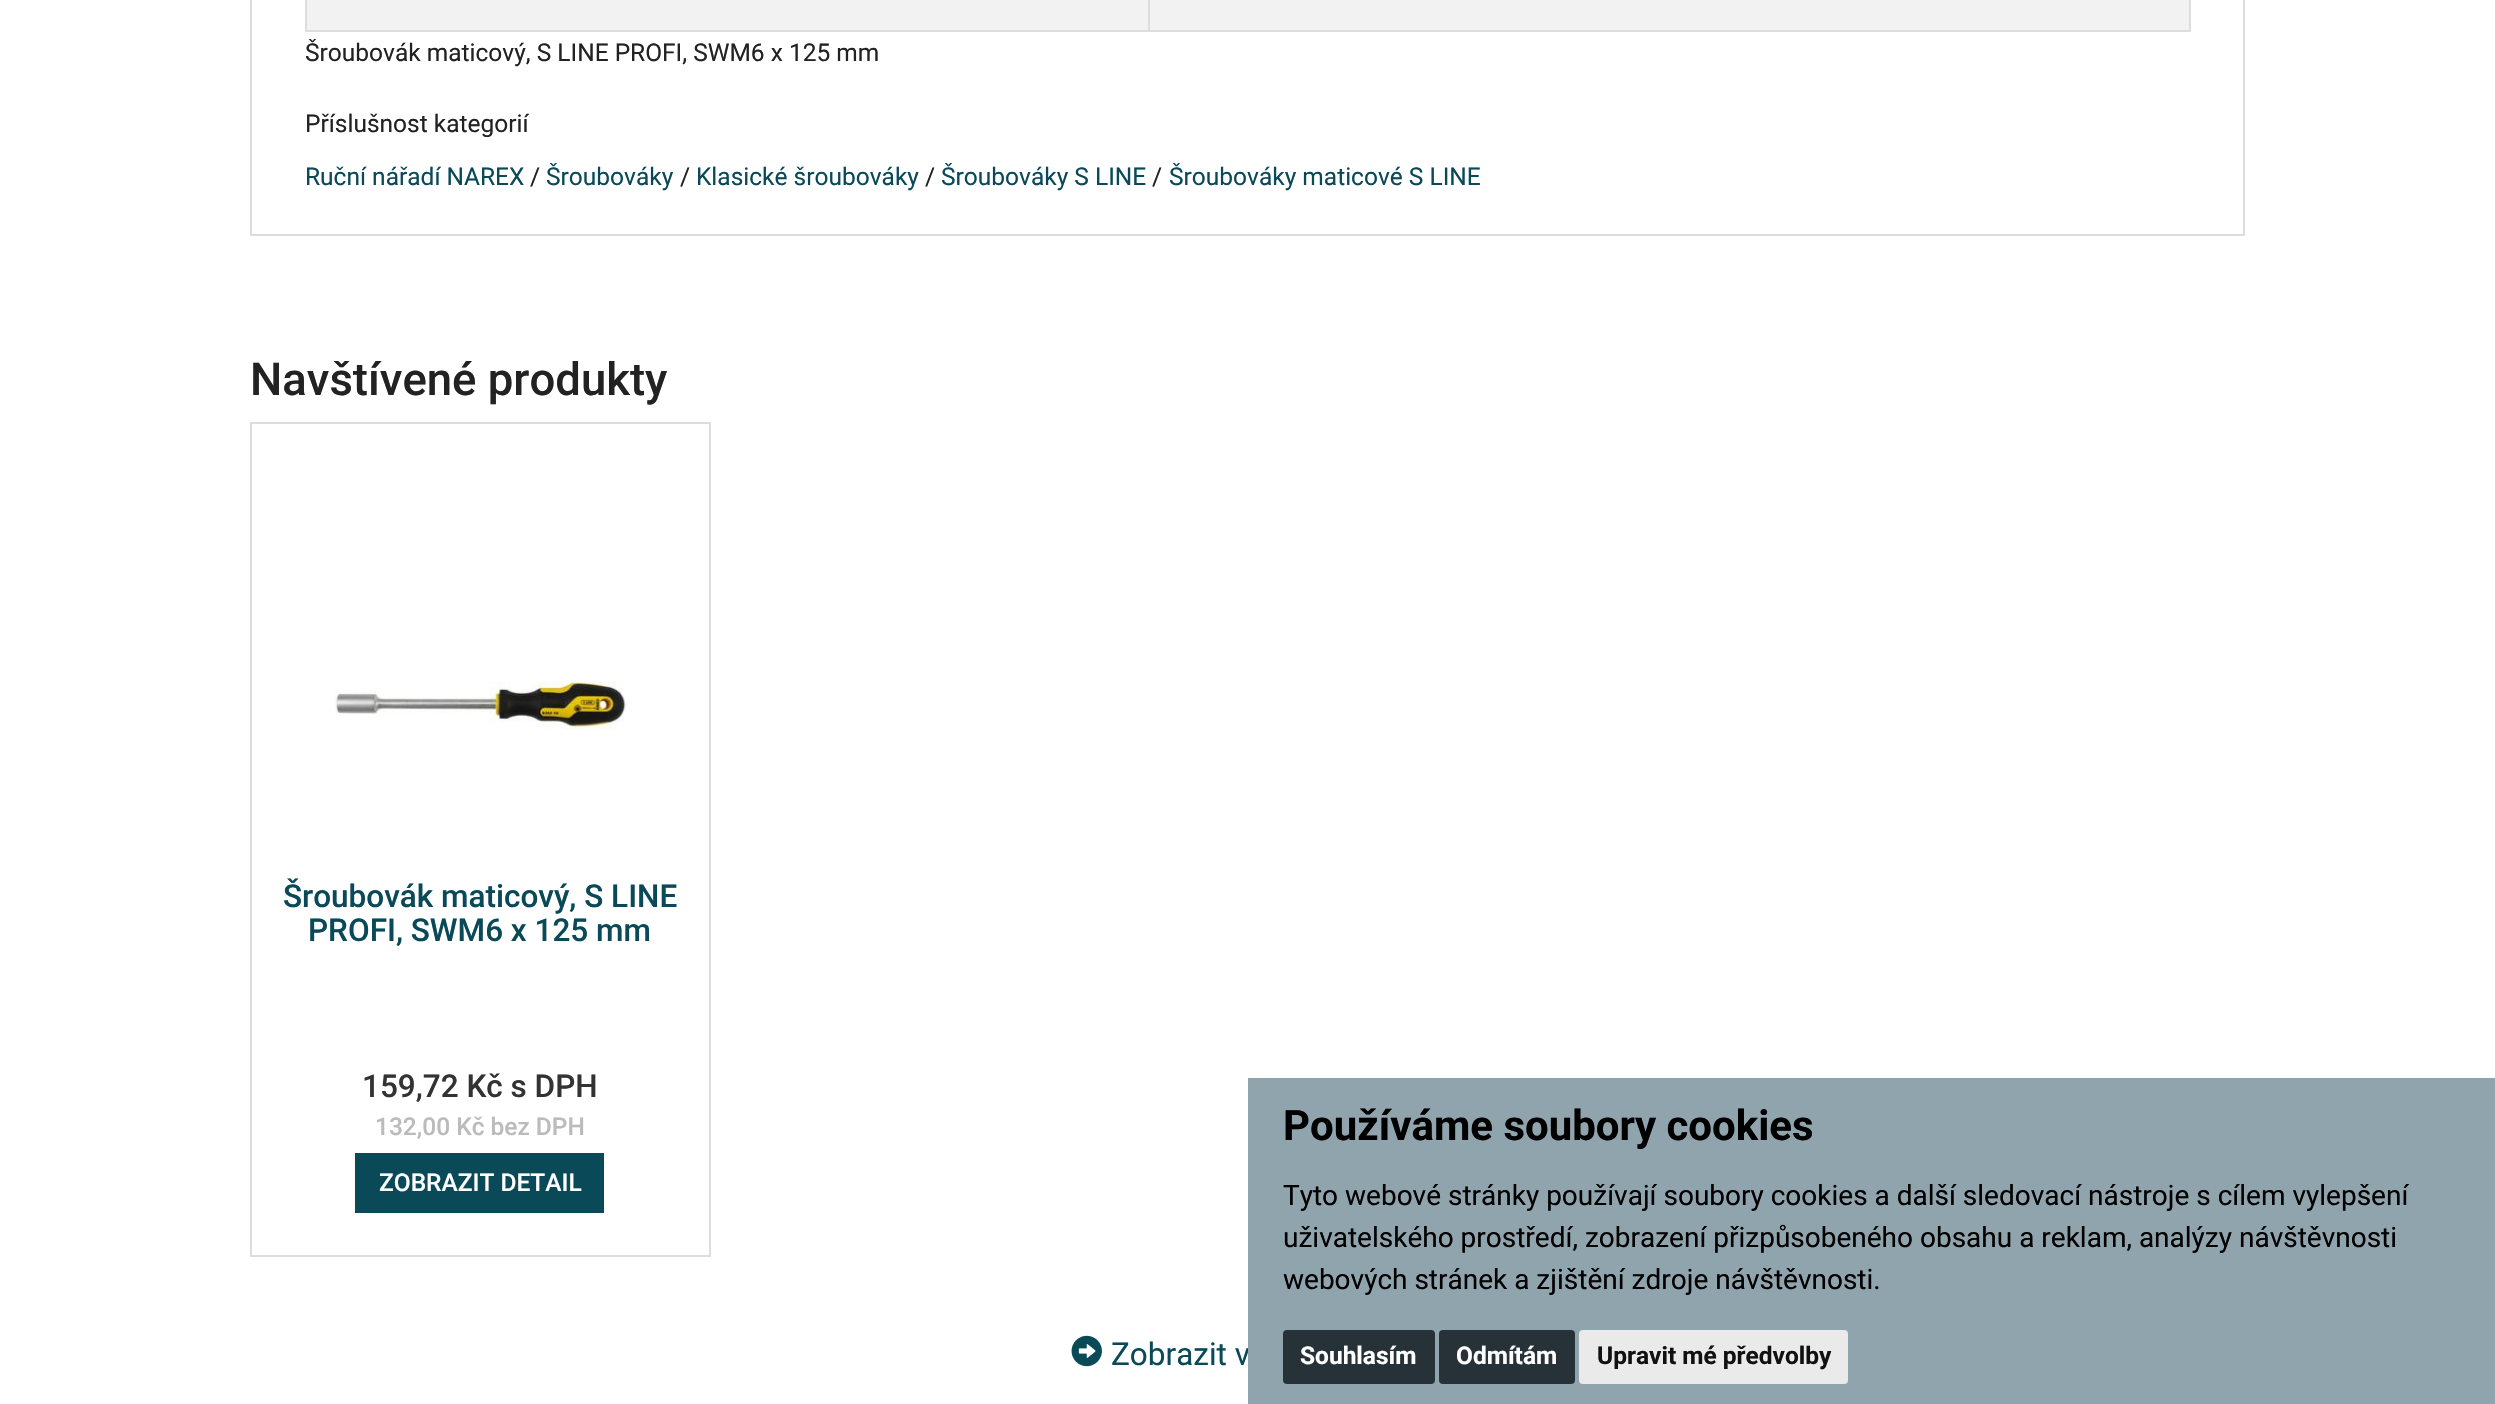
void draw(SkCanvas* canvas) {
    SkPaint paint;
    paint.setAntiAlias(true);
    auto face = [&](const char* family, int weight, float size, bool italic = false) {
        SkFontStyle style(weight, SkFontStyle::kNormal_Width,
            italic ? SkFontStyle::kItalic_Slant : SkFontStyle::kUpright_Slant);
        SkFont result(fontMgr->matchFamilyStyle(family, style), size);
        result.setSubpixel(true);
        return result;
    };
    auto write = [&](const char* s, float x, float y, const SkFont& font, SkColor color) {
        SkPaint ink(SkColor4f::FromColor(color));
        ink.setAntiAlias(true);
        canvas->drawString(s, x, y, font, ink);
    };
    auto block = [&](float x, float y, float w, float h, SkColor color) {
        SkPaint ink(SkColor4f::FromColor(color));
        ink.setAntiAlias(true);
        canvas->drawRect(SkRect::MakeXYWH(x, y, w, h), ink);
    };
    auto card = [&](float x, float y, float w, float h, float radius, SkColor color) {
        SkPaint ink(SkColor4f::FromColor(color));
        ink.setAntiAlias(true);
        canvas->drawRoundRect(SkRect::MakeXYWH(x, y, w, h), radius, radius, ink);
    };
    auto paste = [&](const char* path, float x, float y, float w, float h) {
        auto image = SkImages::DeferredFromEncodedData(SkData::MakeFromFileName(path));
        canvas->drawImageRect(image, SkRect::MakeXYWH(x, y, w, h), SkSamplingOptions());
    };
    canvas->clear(SK_ColorWHITE);
    paint.setStyle(SkPaint::kStroke_Style);
    paint.setStrokeWidth(2);
    paint.setColor(SkColorSetRGB(221, 221, 221));
    canvas->drawRect(SkRect::MakeXYWH(251, -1, 1993, 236), paint);
    block(307, 0, 1882, 30, SkColorSetRGB(242, 242, 242));
    block(2189, 0, 2, 32, SkColorSetRGB(221, 221, 221));
    block(1148, 30, 1043, 2, SkColorSetRGB(221, 221, 221));
    block(1148, 0, 2, 32, SkColorSetRGB(221, 221, 221));
    block(305, 30, 845, 2, SkColorSetRGB(221, 221, 221));
    block(305, 0, 2, 32, SkColorSetRGB(221, 221, 221));
    auto kFont1 = face("Roboto", 400, 24.5f);
    write("Šroubovák maticový, S LINE PROFI, SWM6 x 125 mm", 305, 61, kFont1, SkColorSetRGB(34, 34, 34));
    write("Příslušnost kategorií", 305, 132, kFont1, SkColorSetRGB(34, 34, 34));
    write("Ruční nářadí NAREX", 305, 185, kFont1, SkColorSetRGB(10, 73, 88));
    write("/", 530, 185, kFont1, SkColorSetRGB(34, 34, 34));
    write("Šroubováky", 546, 185, kFont1, SkColorSetRGB(10, 73, 88));
    write("/", 680, 185, kFont1, SkColorSetRGB(34, 34, 34));
    write("Klasické šroubováky", 696, 185, kFont1, SkColorSetRGB(10, 73, 88));
    write("/", 925, 185, kFont1, SkColorSetRGB(34, 34, 34));
    write("Šroubováky S LINE", 941, 185, kFont1, SkColorSetRGB(10, 73, 88));
    write("/", 1152, 185, kFont1, SkColorSetRGB(34, 34, 34));
    write("Šroubováky maticové S LINE", 1169, 185, kFont1, SkColorSetRGB(10, 73, 88));
    auto kFont2 = face("Roboto", 500, 45.5f);
    write("Navštívené produkty", 250, 395, kFont2, SkColorSetRGB(34, 34, 34));
    canvas->drawRect(SkRect::MakeXYWH(251, 423, 459, 833), paint);
    paste("pic1.png", 334, 681, 294, 49);
    auto kFont3 = face("Roboto", 500, 31.5f);
    write("Šroubovák maticový, S LINE", 283, 907, kFont3, SkColorSetRGB(10, 73, 88));
    write("PROFI, SWM6 x 125 mm", 308, 941, kFont3, SkColorSetRGB(10, 73, 88));
    write("159,72 Kč s DPH", 362, 1097, kFont3, SkColorSetRGB(51, 51, 51));
    auto kFont4 = face("Roboto", 500, 24.5f);
    write("132,00 Kč bez DPH", 375, 1135, kFont4, SkColorSetRGB(187, 187, 187));
    block(355, 1153, 249, 60, SkColorSetRGB(10, 73, 88));
    write("ZOBRAZIT DETAIL", 379, 1191, kFont4, SK_ColorWHITE);
    paste("pic2.png", 1071, 1335, 31, 32);
    auto kFont5 = face("Roboto", 400, 31.5f);
    write("Zobrazit v", 1111, 1365, kFont5, SkColorSetRGB(10, 73, 88));
    block(1248, 1078, 1247, 326, SkColorSetRGB(144, 164, 174));
    auto kFont6 = face("Roboto", 700, 42);
    write("Používáme soubory cookies", 1283, 1140, kFont6, SK_ColorBLACK);
    auto kFont7 = face("Roboto", 400, 28);
    write("Tyto webové stránky používají soubory cookies a další sledovací nástroje s cílem vylepšení", 1283, 1205, kFont7, SK_ColorBLACK);
    write("uživatelského prostředí, zobrazení přizpůsobeného obsahu a reklam, analýzy návštěvnosti", 1283, 1247, kFont7, SK_ColorBLACK);
    write("webových stránek a zjištění zdroje návštěvnosti.", 1283, 1289, kFont7, SK_ColorBLACK);
    card(1283, 1330, 152, 54, 4, SkColorSetRGB(38, 50, 56));
    auto kFont8 = face("Roboto", 700, 24.5f);
    write("Souhlasím", 1300, 1364, kFont8, SK_ColorWHITE);
    card(1439, 1330, 136, 54, 4, SkColorSetRGB(38, 50, 56));
    write("Odmítám", 1456, 1364, kFont8, SK_ColorWHITE);
    card(1579, 1330, 269, 54, 4, SkColorSetRGB(234, 234, 234));
    write("Upravit mé předvolby", 1597, 1364, kFont8, SkColorSetRGB(17, 17, 17));
}
